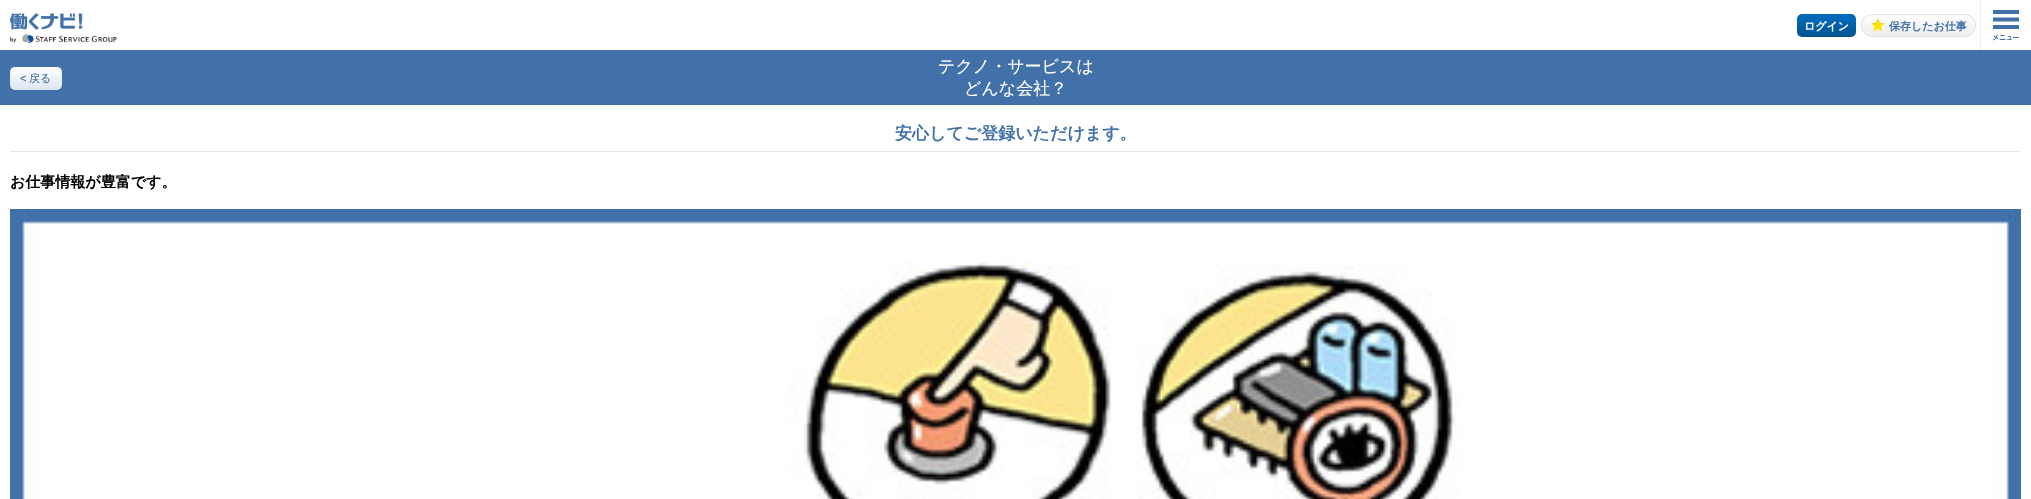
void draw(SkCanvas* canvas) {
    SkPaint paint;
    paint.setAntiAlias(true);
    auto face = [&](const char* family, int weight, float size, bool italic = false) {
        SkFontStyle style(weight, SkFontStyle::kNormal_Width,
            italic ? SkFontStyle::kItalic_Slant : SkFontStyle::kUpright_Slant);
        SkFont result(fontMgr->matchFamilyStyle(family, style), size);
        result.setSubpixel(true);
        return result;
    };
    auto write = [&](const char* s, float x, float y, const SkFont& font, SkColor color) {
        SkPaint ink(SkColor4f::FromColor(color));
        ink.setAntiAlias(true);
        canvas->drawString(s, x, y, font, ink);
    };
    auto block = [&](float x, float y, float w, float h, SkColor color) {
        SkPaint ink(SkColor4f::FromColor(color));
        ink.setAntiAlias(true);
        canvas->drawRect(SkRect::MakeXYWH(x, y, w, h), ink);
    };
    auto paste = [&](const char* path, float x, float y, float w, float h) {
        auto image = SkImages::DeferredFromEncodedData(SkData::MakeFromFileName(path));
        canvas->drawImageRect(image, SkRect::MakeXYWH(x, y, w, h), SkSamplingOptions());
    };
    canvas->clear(SK_ColorWHITE);
    block(0, 50, 2031, 55, SkColorSetRGB(65, 113, 168));
    paste("pic1.png", 10, 13, 107, 30);
    {
        const SkColor colors[] = {SkColorSetRGB(0, 104, 182), SkColorSetRGB(0, 83, 142)};
        const float stops[] = {0.25f, 1};
        const SkPoint ends[] = {{1827, 14}, {1827, 37}};
        paint.setShader(SkGradientShader::MakeLinear(ends, colors, stops, 2, SkTileMode::kClamp));
        paint.setAlpha(255);
    }
    canvas->drawRoundRect(SkRect::MakeXYWH(1797, 14, 59, 23), 5, 5, paint);
    auto kFont1 = face("WenQuanYi Zen Hei", 700, 11);
    write("ログイン", 1804, 30, kFont1, SK_ColorWHITE);
    paste("pic2.png", 1861, 14, 115, 23);
    write("保存したお仕事", 1889, 30, kFont1, SkColorSetRGB(65, 113, 168));
    paste("pic3.png", 1980, 0, 40, 50);
    {
        const SkColor colors[] = {SK_ColorWHITE, SkColorSetRGB(220, 229, 239)};
        const float stops[] = {0, 1};
        const SkPoint ends[] = {{36, 67}, {36, 90}};
        paint.setShader(SkGradientShader::MakeLinear(ends, colors, stops, 2, SkTileMode::kClamp));
        paint.setAlpha(255);
    }
    canvas->drawRoundRect(SkRect::MakeXYWH(10, 67, 52, 23), 5, 5, paint);
    auto kFont2 = face("Liberation Sans", 400, 11);
    write("<", 20, 82, kFont2, SkColorSetRGB(65, 113, 168));
    auto kFont3 = face("WenQuanYi Zen Hei", 500, 11);
    write("戻る", 29, 82, kFont3, SkColorSetRGB(65, 113, 168));
    auto kFont4 = face("WenQuanYi Zen Hei", 500, 17);
    write("テクノ・サービスは", 938, 72, kFont4, SK_ColorWHITE);
    write("どんな会社？", 964, 94, kFont4, SK_ColorWHITE);
    block(10, 151, 2011, 1, SkColorSetRGB(231, 231, 231));
    auto kFont5 = face("WenQuanYi Zen Hei", 700, 17);
    write("安心してご登録いただけます。", 895, 139, kFont5, SkColorSetRGB(65, 113, 168));
    auto kFont6 = face("WenQuanYi Zen Hei", 700, 15);
    write("お仕事情報が豊富です。", 10, 187, kFont6, SK_ColorBLACK);
    paste("pic4.png", 10, 209, 2011, 290);
}
